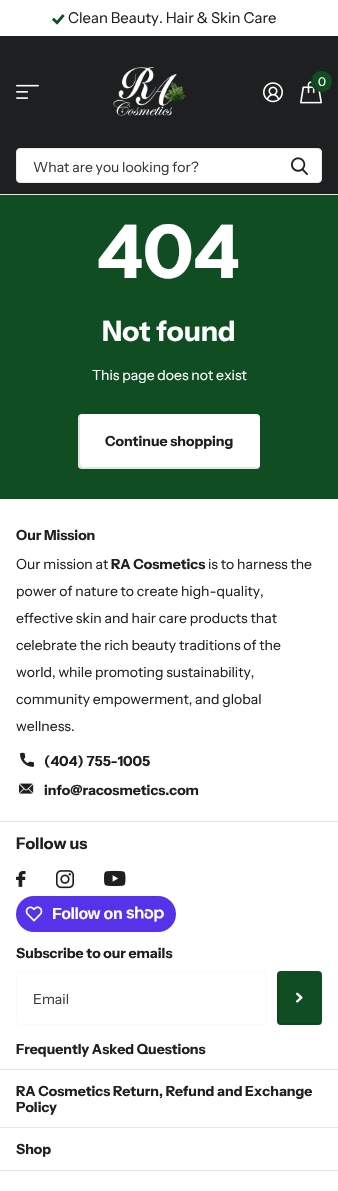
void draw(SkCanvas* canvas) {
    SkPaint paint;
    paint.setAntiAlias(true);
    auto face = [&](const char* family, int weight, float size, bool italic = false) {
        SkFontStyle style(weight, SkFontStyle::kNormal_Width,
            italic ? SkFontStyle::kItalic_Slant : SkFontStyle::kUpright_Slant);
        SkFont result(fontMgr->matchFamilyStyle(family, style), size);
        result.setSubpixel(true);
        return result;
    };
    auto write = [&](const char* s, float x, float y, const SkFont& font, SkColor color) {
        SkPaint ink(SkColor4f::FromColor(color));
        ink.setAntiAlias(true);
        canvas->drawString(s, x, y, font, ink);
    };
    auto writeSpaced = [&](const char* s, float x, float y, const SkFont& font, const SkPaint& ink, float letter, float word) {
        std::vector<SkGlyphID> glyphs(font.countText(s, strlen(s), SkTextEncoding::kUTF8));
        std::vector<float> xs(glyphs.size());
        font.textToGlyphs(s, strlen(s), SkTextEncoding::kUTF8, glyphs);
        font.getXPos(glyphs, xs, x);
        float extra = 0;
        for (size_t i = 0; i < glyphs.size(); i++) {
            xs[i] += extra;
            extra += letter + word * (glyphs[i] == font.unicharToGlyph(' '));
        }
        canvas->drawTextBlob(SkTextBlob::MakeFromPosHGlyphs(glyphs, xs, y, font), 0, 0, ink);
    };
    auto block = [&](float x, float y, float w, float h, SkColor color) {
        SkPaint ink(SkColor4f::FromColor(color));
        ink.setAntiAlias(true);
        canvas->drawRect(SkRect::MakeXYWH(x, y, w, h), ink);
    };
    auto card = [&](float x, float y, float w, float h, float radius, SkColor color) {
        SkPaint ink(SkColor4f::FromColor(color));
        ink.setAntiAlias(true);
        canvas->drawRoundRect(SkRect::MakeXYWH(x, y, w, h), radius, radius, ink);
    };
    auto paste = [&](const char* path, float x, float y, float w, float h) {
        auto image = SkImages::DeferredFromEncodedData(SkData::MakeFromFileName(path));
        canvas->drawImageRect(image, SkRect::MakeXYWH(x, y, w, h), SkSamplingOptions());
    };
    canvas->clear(SkColorSetRGB(17, 77, 35));
    block(0, 0, 338, 36, SK_ColorWHITE);
    paste("pic1.png", 52, 14, 13, 11);
    auto kFont1 = face("Instrument Sans", 400, 14.9f);
    write("Clean Beauty. Hair & Skin Care", 68, 23, kFont1, SkColorSetRGB(30, 31, 32));
    block(0, 36, 338, 158, SkColorSetRGB(30, 31, 32));
    paste("pic2.png", 113, 67, 73, 49);
    paste("pic3.png", 263, 82, 20, 21);
    paste("pic4.png", 300, 81, 22, 23);
    paint.setColor(SkColorSetRGB(17, 77, 35));
    canvas->drawCircle(321.5f, 81.5f, 10.5f, paint);
    paint.setColor(SkColorSetARGB(26, 0, 0, 0));
    canvas->drawPath(SkPathBuilder().moveTo(329.5f, 88.5f).cubicTo(320, 94.5f, 308.5f, 82, 316, 72.5f).cubicTo(310.5f, 76.5f, 309.5f, 84, 314, 89).cubicTo(318.5f, 93, 325.5f, 93, 329.5f, 88.5f).close().detach(), paint);
    auto kFont2 = face("Instrument Sans", 400, 12);
    write("0", 318, 86, kFont2, SK_ColorWHITE);
    paste("pic5.png", 16, 84, 23, 15);
    paint.setColor(SK_ColorWHITE);
    canvas->drawRoundRect(SkRect::MakeXYWH(16.5f, 148.5f, 305, 34), 3.5f, 3.5f, paint);
    paint.setStyle(SkPaint::kStroke_Style);
    paint.setStrokeWidth(1);
    paint.setColor(SkColorSetRGB(236, 232, 226));
    canvas->drawRoundRect(SkRect::MakeXYWH(16.5f, 148.5f, 305, 34), 3.5f, 3.5f, paint);
    auto kFont3 = face("Instrument Sans", 400, 14);
    write("What are you looking for?", 33, 172, kFont3, SkColorSetRGB(55, 57, 58));
    paste("pic6.png", 291, 157, 17, 19);
    block(0, 194, 338, 1, SkColorSetRGB(236, 232, 226));
    auto kFont4 = face("Instrument Sans", 700, 74);
    write("404", 97, 278, kFont4, SK_ColorWHITE);
    auto kFont5 = face("Instrument Sans", 700, 28);
    write("Not found", 102, 341, kFont5, SK_ColorWHITE);
    write("This page does not exist", 92, 380, kFont3, SK_ColorWHITE);
    card(78, 414, 182, 55, 4, SK_ColorWHITE);
    paint.setStyle(SkPaint::kFill_Style);
    paint.setColor(SkColorSetARGB(26, 0, 0, 0));
    canvas->drawPath(SkPathBuilder().moveTo(80, 414).cubicTo(79, 415, 78, 416, 78, 418).lineTo(78, 465).cubicTo(78, 467, 80, 469, 82, 469).lineTo(256, 469).cubicTo(258, 469, 259, 468, 260, 467).lineTo(258, 467).lineTo(84, 467).cubicTo(82, 467, 80, 465, 80, 463).lineTo(80, 416).close().detach(), paint);
    auto kFont6 = face("Instrument Sans", 700, 14);
    write("Continue shopping", 105, 446, kFont6, SkColorSetRGB(30, 31, 32));
    block(0, 499, 338, 692, SK_ColorWHITE);
    write("Our Mission", 16, 540, kFont6, SkColorSetRGB(30, 31, 32));
    write("Our mission at", 16, 569, kFont3, SkColorSetRGB(30, 31, 32));
    write("RA Cosmetics", 111, 569, kFont6, SkColorSetRGB(30, 31, 32));
    write("is to harness the", 208, 569, kFont3, SkColorSetRGB(30, 31, 32));
    write("power of nature to create high-quality,", 16, 596, kFont3, SkColorSetRGB(30, 31, 32));
    write("effective skin and hair care products that", 16, 623, kFont3, SkColorSetRGB(30, 31, 32));
    write("celebrate the rich beauty traditions of the", 16, 650, kFont3, SkColorSetRGB(30, 31, 32));
    write("world, while promoting sustainability,", 16, 677, kFont3, SkColorSetRGB(30, 31, 32));
    write("community empowerment, and global", 16, 704, kFont3, SkColorSetRGB(30, 31, 32));
    write("wellness.", 16, 731, kFont3, SkColorSetRGB(30, 31, 32));
    paste("pic7.png", 20, 752, 14, 15);
    write("(404) 755-1005", 44, 766, kFont6, SkColorSetRGB(30, 31, 32));
    paste("pic8.png", 19, 783, 15, 11);
    write("info@racosmetics.com", 44, 795, kFont6, SkColorSetRGB(30, 31, 32));
    block(0, 821, 338, 1, SkColorSetRGB(233, 233, 233));
    auto kFont7 = face("Instrument Sans", 700, 16);
    write("Follow us", 16, 849, kFont7, SkColorSetRGB(30, 31, 32));
    paste("pic9.png", 16, 871, 10, 16);
    paste("pic10.png", 56, 870, 18, 19);
    paste("pic11.png", 104, 870, 22, 17);
    card(16, 896, 160, 36, 18, SkColorSetRGB(84, 51, 235));
    paste("pic12.png", 25, 906, 18, 16);
    auto kFont8 = face("Liberation Sans", 700, 16);
    paint.setColor(SK_ColorWHITE);
    writeSpaced("Follow on", 52, 919, kFont8, paint, -0.5f, 0);
    paste("pic13.png", 126, 906, 38, 16);
    write("Subscribe to our emails", 16, 958, kFont6, SkColorSetRGB(30, 31, 32));
    paint.setStyle(SkPaint::kStroke_Style);
    paint.setColor(SkColorSetRGB(250, 250, 250));
    canvas->drawRoundRect(SkRect::MakeXYWH(16.5f, 971.5f, 250, 53), 3.5f, 3.5f, paint);
    write("Email", 33, 1004, kFont3, SkColorSetRGB(55, 57, 58));
    card(277, 971, 45, 54, 4, SkColorSetRGB(17, 77, 35));
    paint.setStyle(SkPaint::kFill_Style);
    paint.setColor(SkColorSetARGB(26, 0, 0, 0));
    canvas->drawPath(SkPathBuilder().moveTo(279, 971).cubicTo(278, 972, 277, 973, 277, 975).lineTo(277, 1021).cubicTo(277, 1023, 279, 1025, 281, 1025).lineTo(318, 1025).cubicTo(320, 1025, 321, 1024, 322, 1023).lineTo(320, 1023).lineTo(283, 1023).cubicTo(281, 1023, 279, 1021, 279, 1019).lineTo(279, 973).close().detach(), paint);
    paste("pic14.png", 296, 992, 7, 11);
    write("Frequently Asked Questions", 16, 1054, kFont6, SkColorSetRGB(30, 31, 32));
    block(0, 1069, 338, 1, SkColorSetRGB(233, 233, 233));
    write("RA Cosmetics Return, Refund and Exchange", 16, 1096, kFont6, SkColorSetRGB(30, 31, 32));
    write("Policy", 16, 1112, kFont6, SkColorSetRGB(30, 31, 32));
    block(0, 1127, 338, 1, SkColorSetRGB(233, 233, 233));
    write("Shop", 16, 1154, kFont6, SkColorSetRGB(30, 31, 32));
    block(0, 1170, 338, 1, SkColorSetRGB(233, 233, 233));
}
